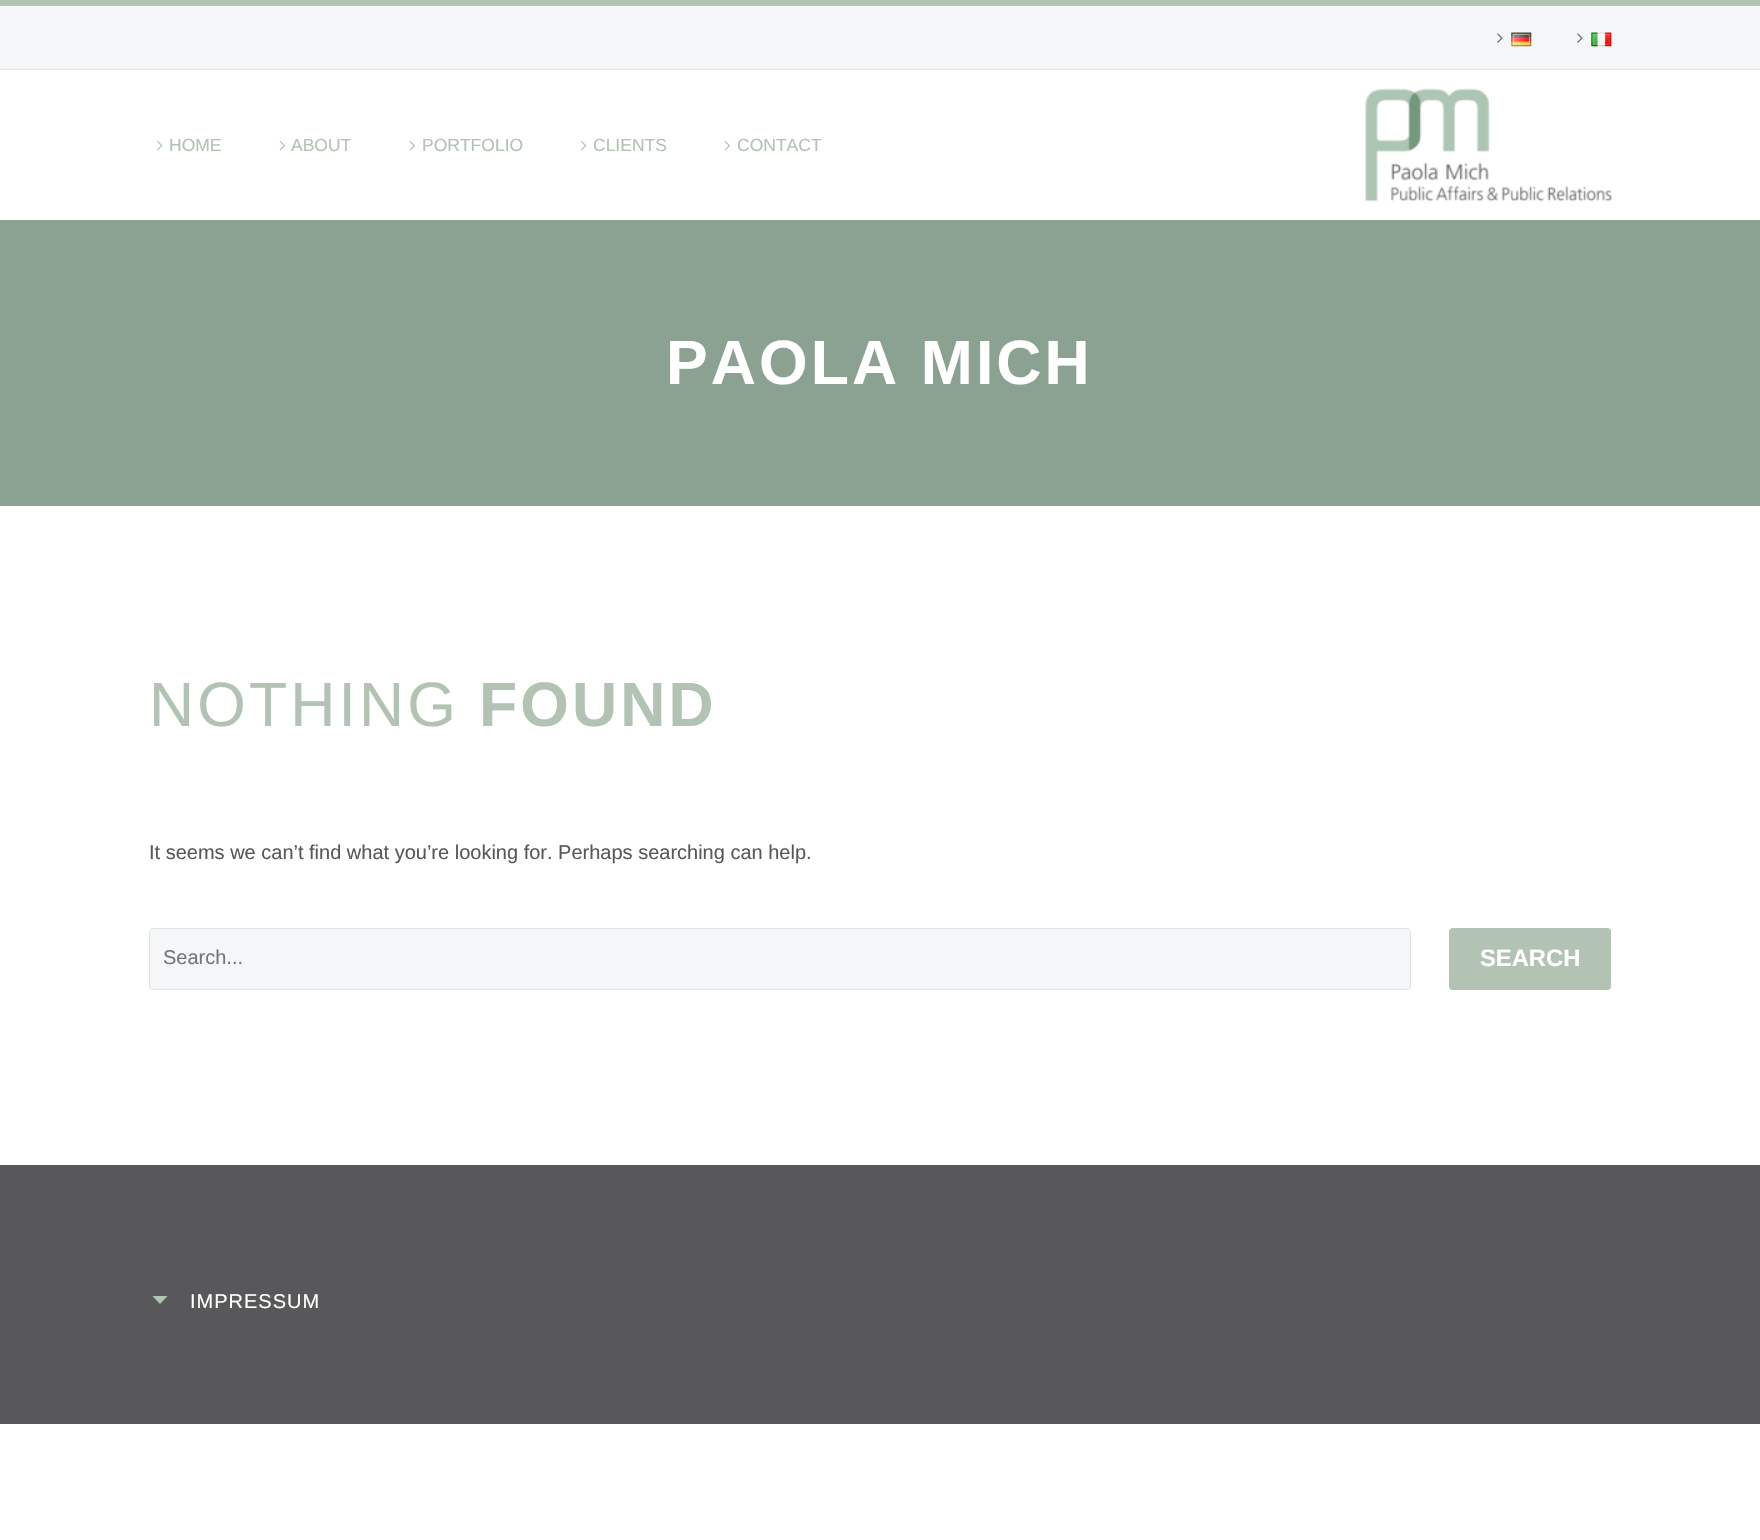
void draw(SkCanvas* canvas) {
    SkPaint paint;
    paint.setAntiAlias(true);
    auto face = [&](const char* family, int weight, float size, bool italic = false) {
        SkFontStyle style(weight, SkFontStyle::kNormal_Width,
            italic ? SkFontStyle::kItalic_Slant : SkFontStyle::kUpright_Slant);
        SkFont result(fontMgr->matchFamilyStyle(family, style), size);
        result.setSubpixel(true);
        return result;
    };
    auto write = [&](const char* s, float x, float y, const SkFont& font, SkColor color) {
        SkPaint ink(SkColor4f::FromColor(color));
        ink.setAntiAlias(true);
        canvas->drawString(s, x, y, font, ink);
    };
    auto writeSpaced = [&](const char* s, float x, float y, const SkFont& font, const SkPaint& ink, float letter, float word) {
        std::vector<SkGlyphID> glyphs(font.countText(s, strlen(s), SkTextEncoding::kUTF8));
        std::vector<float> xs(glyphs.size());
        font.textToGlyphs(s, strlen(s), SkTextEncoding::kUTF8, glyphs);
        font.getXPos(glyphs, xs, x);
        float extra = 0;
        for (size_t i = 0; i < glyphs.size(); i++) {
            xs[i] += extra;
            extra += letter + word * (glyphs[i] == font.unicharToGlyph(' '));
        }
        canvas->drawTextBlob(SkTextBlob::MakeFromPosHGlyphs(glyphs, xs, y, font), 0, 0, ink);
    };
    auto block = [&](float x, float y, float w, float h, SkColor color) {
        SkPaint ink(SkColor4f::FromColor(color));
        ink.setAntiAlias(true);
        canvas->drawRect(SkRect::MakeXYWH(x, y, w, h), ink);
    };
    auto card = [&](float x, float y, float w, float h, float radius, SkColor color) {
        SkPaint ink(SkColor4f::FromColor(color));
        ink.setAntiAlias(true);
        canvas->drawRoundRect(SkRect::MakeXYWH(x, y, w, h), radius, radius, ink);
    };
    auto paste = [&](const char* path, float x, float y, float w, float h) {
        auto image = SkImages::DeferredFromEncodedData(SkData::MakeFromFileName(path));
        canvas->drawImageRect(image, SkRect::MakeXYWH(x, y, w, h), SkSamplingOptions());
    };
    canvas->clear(SK_ColorWHITE);
    block(0, 0, 1760, 6, SkColorSetRGB(179, 195, 179));
    block(0, 69, 1760, 1, SkColorSetRGB(223, 229, 232));
    block(0, 6, 1760, 63, SkColorSetRGB(244, 246, 247));
    paste("pic1.png", 1497, 33, 6, 10);
    paste("pic2.png", 1511, 32, 21, 15);
    paste("pic1.png", 1577, 33, 6, 10);
    paste("pic3.png", 1591, 32, 21, 15);
    paste("pic4.png", 157, 141, 6, 10);
    auto kFont1 = face("Liberation Sans", 400, 17.5f);
    write("HOME", 169, 151, kFont1, SkColorSetRGB(179, 195, 179));
    paste("pic5.png", 279, 141, 6, 10);
    write("ABOUT", 291, 151, kFont1, SkColorSetRGB(179, 195, 179));
    paste("pic5.png", 409, 141, 6, 10);
    write("PORTFOLIO", 422, 151, kFont1, SkColorSetRGB(179, 195, 179));
    paste("pic6.png", 581, 141, 6, 10);
    write("CLIENTS", 593, 151, kFont1, SkColorSetRGB(179, 195, 179));
    paste("pic5.png", 724, 141, 6, 10);
    write("CONTACT", 737, 151, kFont1, SkColorSetRGB(179, 195, 179));
    paste("pic7.png", 1365, 88, 247, 114);
    block(0, 220, 1760, 286, SkColorSetRGB(139, 161, 145));
    auto kFont2 = face("Liberation Sans", 700, 62.5f);
    paint.setColor(SK_ColorWHITE);
    writeSpaced("PAOLA MICH", 666, 384, kFont2, paint, 3.1f, 0);
    auto kFont3 = face("Liberation Sans", 400, 62.5f);
    paint.setColor(SkColorSetRGB(179, 195, 179));
    writeSpaced("NOTHING", 149, 726, kFont3, paint, 3.1f, 0);
    writeSpaced("FOUND", 479, 726, kFont2, paint, 3.1f, 0);
    auto kFont4 = face("Liberation Sans", 400, 20);
    write("It seems we can’t find what you’re looking for. Perhaps searching can help.", 149, 859, kFont4, SkColorSetRGB(88, 88, 90));
    paint.setColor(SkColorSetRGB(244, 246, 247));
    canvas->drawRoundRect(SkRect::MakeXYWH(149.5f, 928.5f, 1261, 61), 3.5f, 3.5f, paint);
    paint.setStyle(SkPaint::kStroke_Style);
    paint.setStrokeWidth(1);
    paint.setColor(SkColorSetRGB(223, 229, 232));
    canvas->drawRoundRect(SkRect::MakeXYWH(149.5f, 928.5f, 1261, 61), 3.5f, 3.5f, paint);
    write("Search...", 163, 964, kFont4, SkColorSetRGB(117, 117, 117));
    card(1449, 928, 162, 62, 4, SkColorSetRGB(179, 195, 179));
    auto kFont5 = face("Liberation Sans", 700, 23.75f);
    write("SEARCH", 1480, 966, kFont5, SK_ColorWHITE);
    block(0, 1165, 1760, 259, SkColorSetRGB(88, 88, 90));
    paint.setStyle(SkPaint::kFill_Style);
    paint.setColor(SkColorSetRGB(179, 195, 179));
    canvas->drawPath(SkPathBuilder().moveTo(152.5f, 1296).lineTo(167.5f, 1296).lineTo(160, 1304).close().detach(), paint);
    paint.setColor(SK_ColorWHITE);
    writeSpaced("IMPRESSUM", 190, 1308, kFont4, paint, 1, 0);
}
